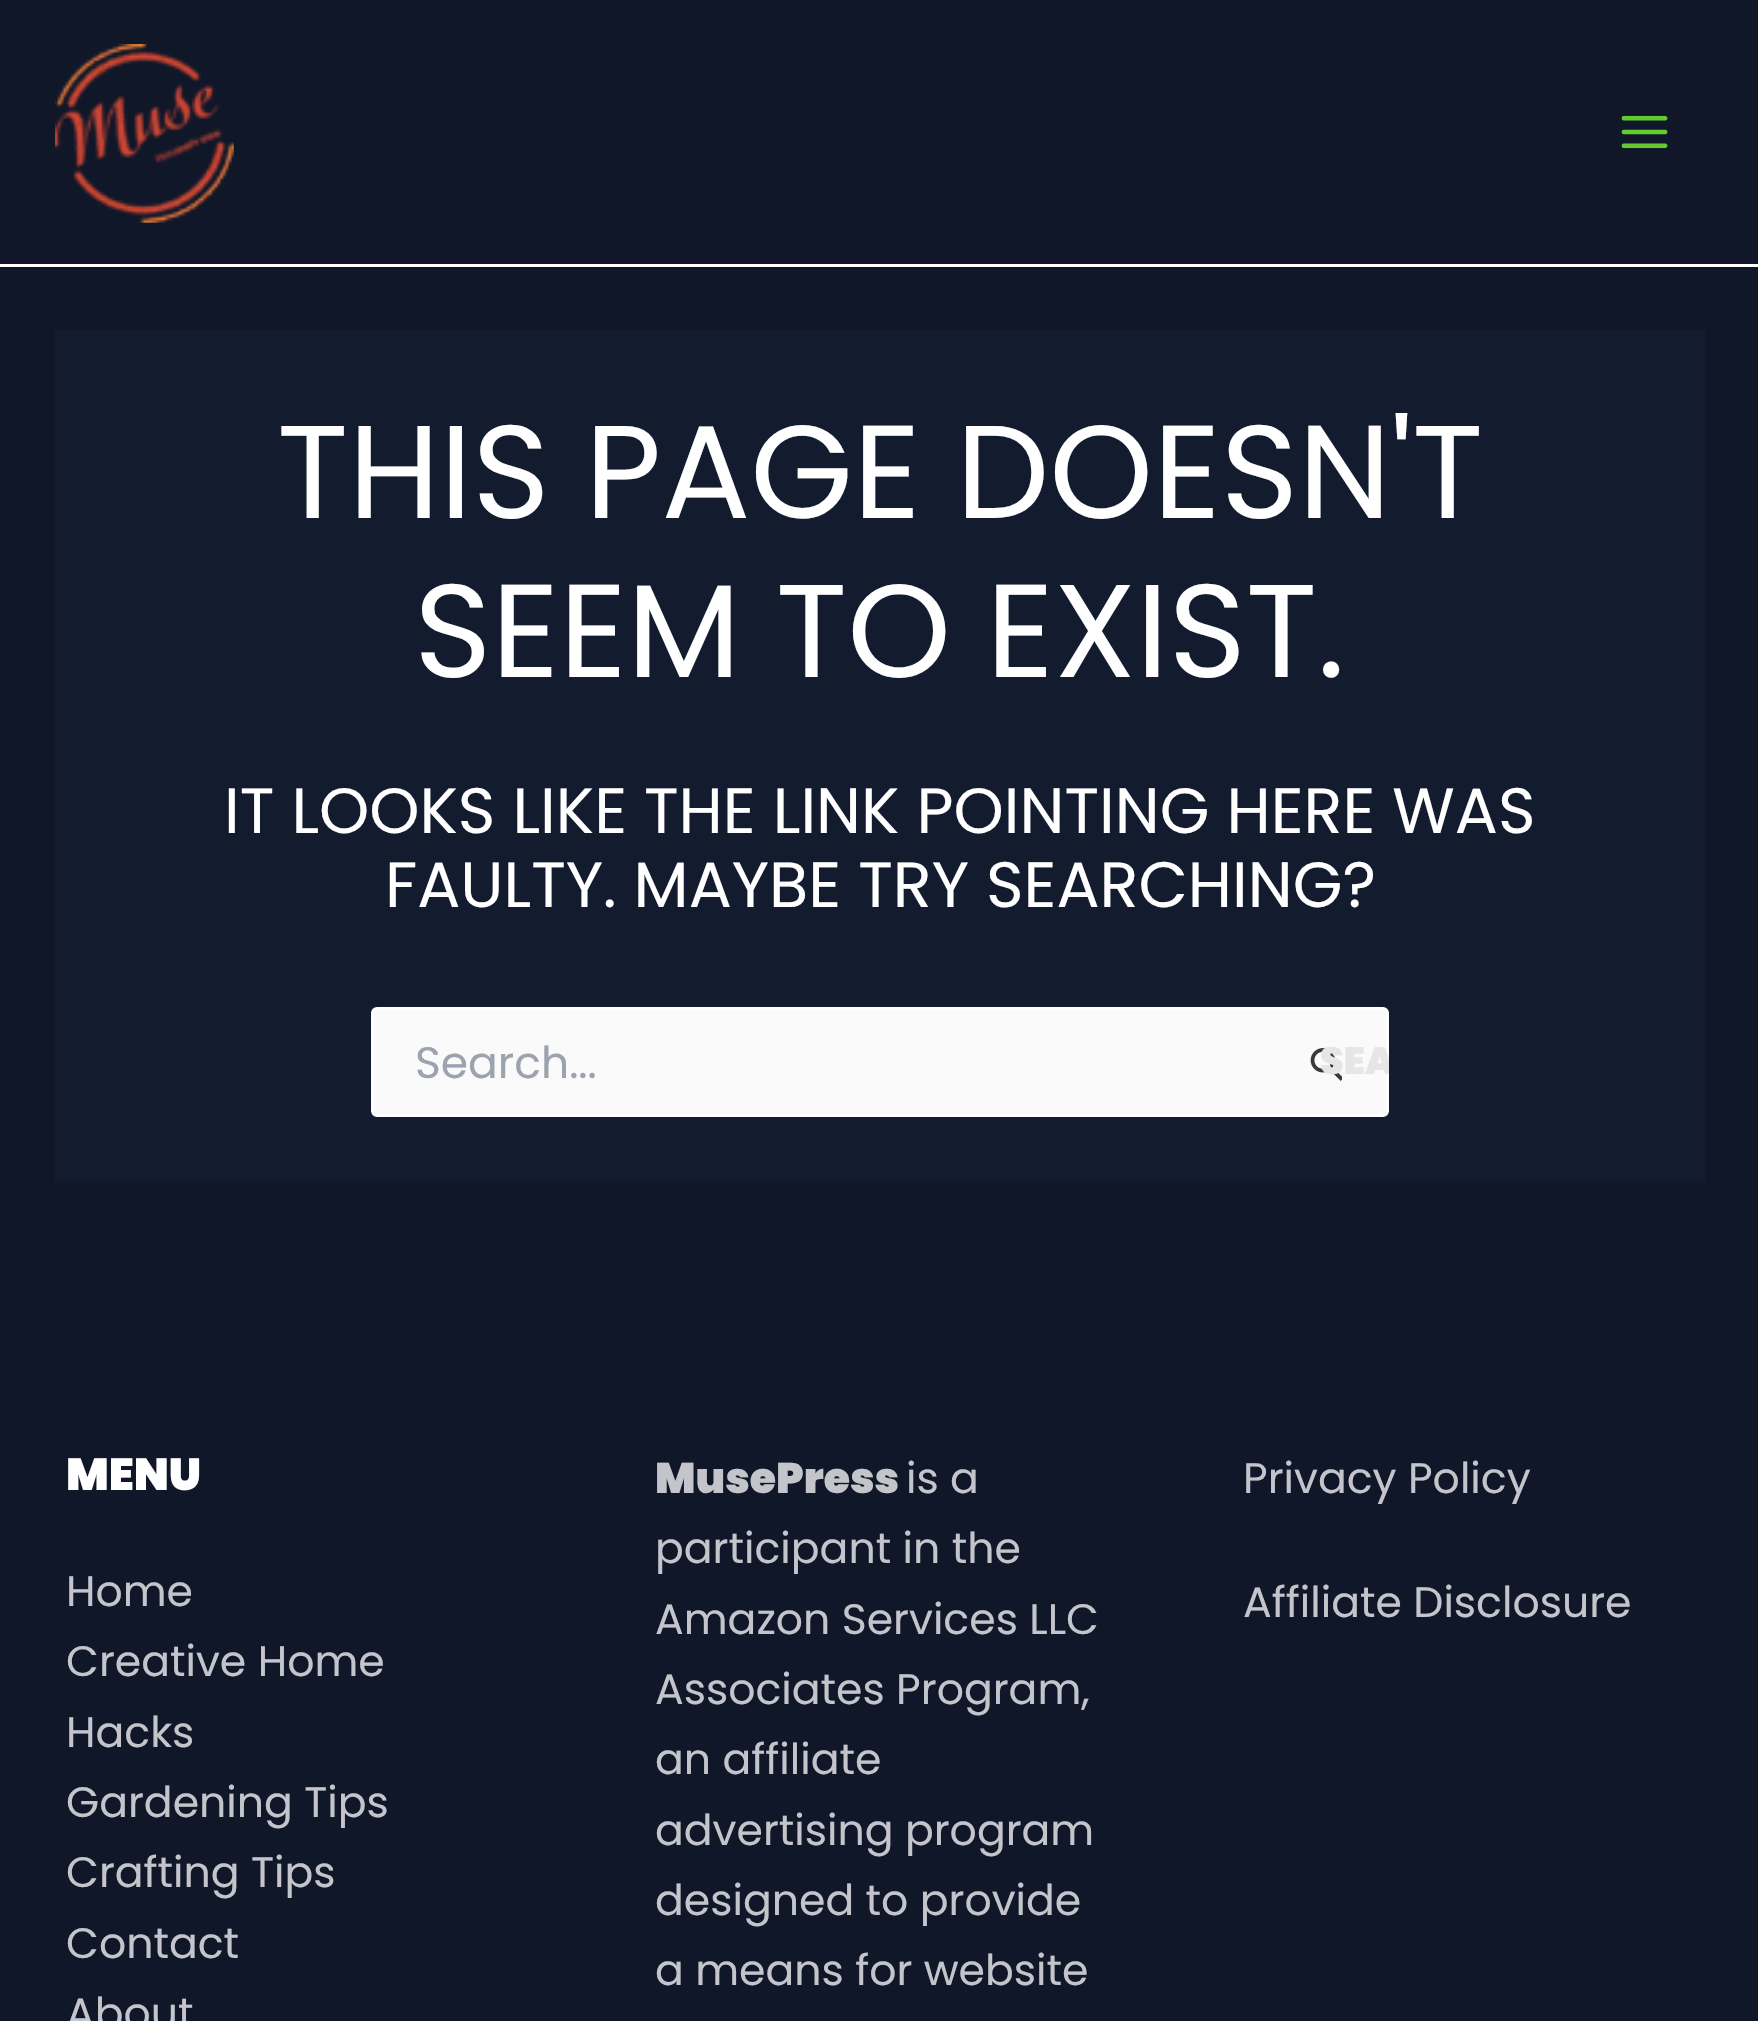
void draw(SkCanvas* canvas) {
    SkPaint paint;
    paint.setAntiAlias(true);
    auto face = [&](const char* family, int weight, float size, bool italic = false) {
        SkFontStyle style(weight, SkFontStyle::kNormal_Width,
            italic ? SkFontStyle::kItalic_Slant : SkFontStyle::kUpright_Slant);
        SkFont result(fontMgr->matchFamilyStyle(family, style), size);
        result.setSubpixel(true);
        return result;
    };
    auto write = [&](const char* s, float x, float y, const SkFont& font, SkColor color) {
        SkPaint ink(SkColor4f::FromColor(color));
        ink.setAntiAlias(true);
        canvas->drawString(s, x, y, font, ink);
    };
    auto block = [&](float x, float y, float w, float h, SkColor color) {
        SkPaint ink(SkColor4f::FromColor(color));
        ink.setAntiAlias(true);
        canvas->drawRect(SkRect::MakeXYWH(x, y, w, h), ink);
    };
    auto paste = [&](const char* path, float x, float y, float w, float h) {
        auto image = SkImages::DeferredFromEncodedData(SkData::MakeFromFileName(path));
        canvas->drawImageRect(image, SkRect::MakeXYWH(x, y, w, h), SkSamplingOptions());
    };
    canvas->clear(SkColorSetRGB(16, 23, 41));
    block(0, 264, 1758, 3, SK_ColorWHITE);
    paste("pic1.png", 55, 44, 179, 179);
    paste("pic2.png", 1621, 115, 47, 34);
    block(55, 330, 1650, 853, SkColorSetRGB(19, 27, 47));
    auto kFont1 = face("Poppins", 400, 132);
    write("THIS PAGE DOESN'T", 277, 518, kFont1, SK_ColorWHITE);
    write("SEEM TO EXIST.", 414, 677, kFont1, SK_ColorWHITE);
    auto kFont2 = face("Poppins", 400, 63.95f);
    write("IT LOOKS LIKE THE LINK POINTING HERE WAS", 224, 833, kFont2, SK_ColorWHITE);
    write("FAULTY. MAYBE TRY SEARCHING?", 385, 907, kFont2, SK_ColorWHITE);
    paint.setColor(SkColorSetRGB(250, 250, 250));
    canvas->drawRoundRect(SkRect::MakeXYWH(372.5f, 1008.5f, 1015, 107), 4.5f, 4.5f, paint);
    paint.setStyle(SkPaint::kStroke_Style);
    paint.setStrokeWidth(3);
    paint.setColor(SK_ColorWHITE);
    canvas->drawRoundRect(SkRect::MakeXYWH(372.5f, 1008.5f, 1015, 107), 4.5f, 4.5f, paint);
    auto kFont3 = face("Poppins", 400, 44);
    write("Search...", 415, 1078, kFont3, SkColorSetRGB(156, 163, 175));
    paste("pic3.png", 1310, 1048, 32, 33);
    canvas->save();
    canvas->clipPath(SkPathBuilder().moveTo(1271, 1007).lineTo(1383, 1007).cubicTo(1386.5f, 1007, 1389, 1009.5f, 1389, 1013).lineTo(1389, 1111).cubicTo(1389, 1114.5f, 1386.5f, 1117, 1383, 1117).lineTo(1271, 1117).cubicTo(1267.5f, 1117, 1265, 1114.5f, 1265, 1111).lineTo(1265, 1013).cubicTo(1265, 1009.5f, 1267.5f, 1007, 1271, 1007).close().detach(), true);
    auto kFont4 = face("Poppins", 900, 38);
    write("SEA", 1320, 1074, kFont4, SkColorSetRGB(230, 230, 230));
    canvas->restore();
    auto kFont5 = face("Poppins", 900, 45);
    write("MENU", 66, 1490, kFont5, SK_ColorWHITE);
    auto kFont6 = face("Poppins", 400, 42.6f);
    write("Home", 66, 1606, kFont6, SkColorSetRGB(195, 197, 202));
    write("Creative Home", 66, 1676, kFont6, SkColorSetRGB(195, 197, 202));
    write("Hacks", 66, 1747, kFont6, SkColorSetRGB(195, 197, 202));
    write("Gardening Tips", 66, 1817, kFont6, SkColorSetRGB(195, 197, 202));
    write("Crafting Tips", 66, 1887, kFont6, SkColorSetRGB(195, 197, 202));
    write("Contact", 66, 1958, kFont6, SkColorSetRGB(195, 197, 202));
    write("About", 66, 2028, kFont6, SkColorSetRGB(195, 197, 202));
    auto kFont7 = face("Poppins", 900, 42.6f);
    write("MusePress", 655, 1493, kFont7, SkColorSetRGB(195, 197, 202));
    write("is a", 906, 1493, kFont6, SkColorSetRGB(195, 197, 202));
    write("participant in the", 655, 1563, kFont6, SkColorSetRGB(195, 197, 202));
    write("Amazon Services LLC", 655, 1634, kFont6, SkColorSetRGB(195, 197, 202));
    write("Associates Program,", 655, 1704, kFont6, SkColorSetRGB(195, 197, 202));
    write("an affiliate", 655, 1774, kFont6, SkColorSetRGB(195, 197, 202));
    write("advertising program", 655, 1845, kFont6, SkColorSetRGB(195, 197, 202));
    write("designed to provide", 655, 1915, kFont6, SkColorSetRGB(195, 197, 202));
    write("a means for website", 655, 1985, kFont6, SkColorSetRGB(195, 197, 202));
    write("Privacy Policy", 1243, 1493, kFont6, SkColorSetRGB(195, 197, 202));
    write("Affiliate Disclosure", 1243, 1617, kFont6, SkColorSetRGB(195, 197, 202));
}
